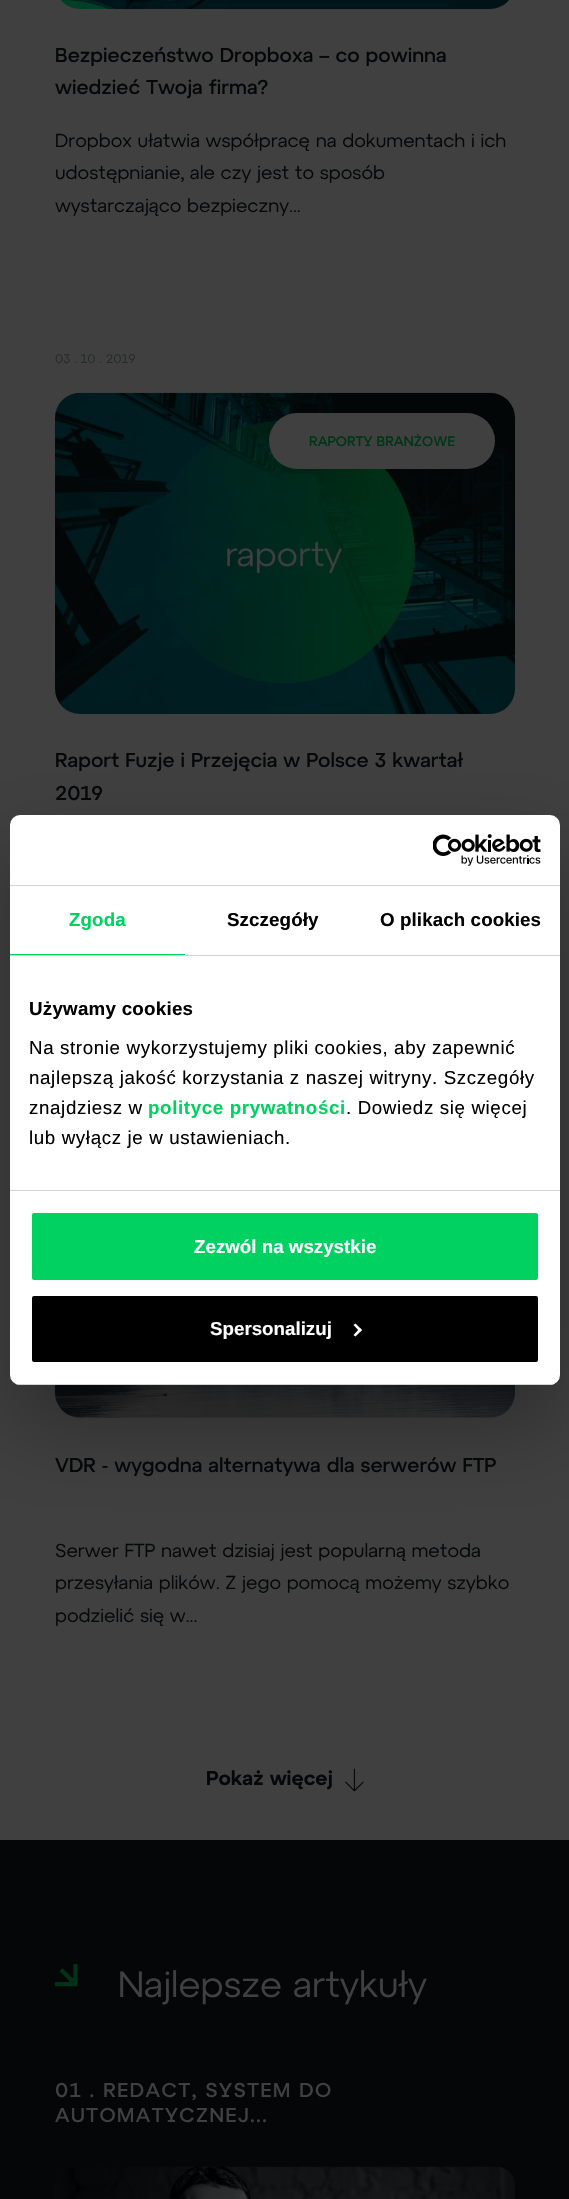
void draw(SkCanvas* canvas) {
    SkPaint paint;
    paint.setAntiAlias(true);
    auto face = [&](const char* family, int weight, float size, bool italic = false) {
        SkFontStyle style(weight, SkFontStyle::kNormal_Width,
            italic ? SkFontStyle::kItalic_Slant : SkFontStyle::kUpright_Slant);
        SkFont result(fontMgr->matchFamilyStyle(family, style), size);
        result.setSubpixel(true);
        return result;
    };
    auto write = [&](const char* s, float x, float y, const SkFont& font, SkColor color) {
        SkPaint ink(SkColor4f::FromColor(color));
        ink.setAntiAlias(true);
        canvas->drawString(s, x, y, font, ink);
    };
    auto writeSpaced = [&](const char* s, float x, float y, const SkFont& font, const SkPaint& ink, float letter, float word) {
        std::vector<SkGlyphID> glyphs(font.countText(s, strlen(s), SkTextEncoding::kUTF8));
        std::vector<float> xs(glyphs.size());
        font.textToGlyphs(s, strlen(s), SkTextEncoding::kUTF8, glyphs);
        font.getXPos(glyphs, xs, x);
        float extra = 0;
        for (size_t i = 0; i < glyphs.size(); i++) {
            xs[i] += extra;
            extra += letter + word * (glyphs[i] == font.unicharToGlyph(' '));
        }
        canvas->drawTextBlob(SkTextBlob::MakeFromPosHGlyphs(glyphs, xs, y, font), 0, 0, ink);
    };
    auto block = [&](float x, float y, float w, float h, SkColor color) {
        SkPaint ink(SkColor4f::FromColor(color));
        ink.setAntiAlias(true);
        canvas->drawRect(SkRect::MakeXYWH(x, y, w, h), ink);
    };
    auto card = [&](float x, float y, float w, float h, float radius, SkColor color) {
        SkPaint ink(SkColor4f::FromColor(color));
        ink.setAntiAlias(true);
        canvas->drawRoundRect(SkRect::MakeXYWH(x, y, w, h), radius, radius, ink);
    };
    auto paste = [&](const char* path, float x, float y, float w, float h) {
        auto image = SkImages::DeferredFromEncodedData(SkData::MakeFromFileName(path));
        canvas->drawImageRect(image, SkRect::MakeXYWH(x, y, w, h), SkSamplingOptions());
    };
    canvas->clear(SkColorSetRGB(4, 6, 7));
    block(0, 0, 569, 1840, SkColorSetRGB(64, 64, 64));
    paste("pic1.png", 61, 0, 448, 9);
    auto kFont1 = face("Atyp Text", 500, 20);
    write("Bezpieczeństwo Dropboxa – co powinna", 55, 62, kFont1, SkColorSetRGB(5, 7, 9));
    write("wiedzieć Twoja firma?", 55, 94, kFont1, SkColorSetRGB(5, 7, 9));
    auto kFont2 = face("Atyp Text", 400, 18.75f);
    write("Dropbox ułatwia współpracę na dokumentach i ich", 55, 147, kFont2, SkColorSetRGB(5, 7, 9));
    write("udostępnianie, ale czy jest to sposób", 55, 179, kFont2, SkColorSetRGB(5, 7, 9));
    write("wystarczająco bezpieczny...", 55, 212, kFont2, SkColorSetRGB(5, 7, 9));
    auto kFont3 = face("Atyp Text", 400, 12.5f);
    write("03 . 10 . 2019", 55, 363, kFont3, SkColorSetRGB(38, 41, 42));
    paste("pic2.png", 55, 392, 460, 322);
    card(269, 413, 226, 56, 28, SkColorSetRGB(64, 64, 64));
    auto kFont4 = face("Atyp Text", 500, 13.75f);
    write("RAPORTY BRANŻOWE", 309, 446, kFont4, SkColorSetRGB(0, 52, 24));
    write("Raport Fuzje i Przejęcia w Polsce 3 kwartał", 55, 767, kFont1, SkColorSetRGB(5, 7, 9));
    write("2019", 55, 800, kFont1, SkColorSetRGB(5, 7, 9));
    paste("pic3.png", 55, 1385, 460, 33);
    write("VDR - wygodna alternatywa dla serwerów FTP", 55, 1472, kFont1, SkColorSetRGB(5, 7, 9));
    write("Serwer FTP nawet dzisiaj jest popularną metoda", 55, 1557, kFont2, SkColorSetRGB(5, 7, 9));
    write("przesyłania plików. Z jego pomocą możemy szybko", 55, 1589, kFont2, SkColorSetRGB(5, 7, 9));
    write("podzielić się w...", 55, 1622, kFont2, SkColorSetRGB(5, 7, 9));
    auto kFont5 = face("Atyp Text", 600, 20);
    write("Pokaż więcej", 206, 1785, kFont5, SkColorSetRGB(5, 7, 9));
    paste("pic4.png", 345, 1768, 19, 24);
    paste("pic5.png", 55, 1964, 23, 23);
    auto kFont6 = face("Atyp Text", 400, 36.25f);
    write("Najlepsze artykuły", 118, 1997, kFont6, SkColorSetRGB(64, 64, 64));
    paint.setColor(SkColorSetRGB(64, 64, 64));
    writeSpaced("01 . REDACT, SYSTEM DO", 55, 2097, kFont1, paint, 1.5f, 0);
    writeSpaced("AUTOMATYCZNEJ…", 55, 2122, kFont1, paint, 1.5f, 0);
    paste("pic6.png", 55, 2166, 460, 33);
    paint.setColor(SkColorSetARGB(77, 0, 0, 0));
    paint.setMaskFilter(SkMaskFilter::MakeBlur(kNormal_SkBlurStyle, 42.5f));
    canvas->drawRoundRect(SkRect::MakeXYWH(10, 855, 550, 570), 10, 10, paint);
    paint.setMaskFilter(nullptr);
    card(10, 815, 550, 570, 10, SK_ColorWHITE);
    block(10, 885, 550, 1, SkColorSetRGB(208, 213, 210));
    paste("pic7.png", 433, 834, 108, 32);
    block(10, 955, 550, 1, SkColorSetRGB(208, 213, 210));
    block(10, 954, 175, 1, SkColorSetRGB(0, 209, 97));
    auto kFont7 = face("Liberation Sans", 700, 18.75f);
    paint.setColor(SkColorSetRGB(0, 209, 97));
    writeSpaced("Zgoda", 69, 926, kFont7, paint, 0.1f, 0);
    paint.setColor(SK_ColorBLACK);
    writeSpaced("Szczegóły", 227, 926, kFont7, paint, 0.1f, 0);
    writeSpaced("O plikach cookies", 380, 926, kFont7, paint, 0.1f, 0);
    block(10, 1190, 550, 1, SkColorSetRGB(208, 213, 210));
    writeSpaced("Używamy cookies", 29, 1015, kFont7, paint, 0.25f, 0);
    auto kFont8 = face("Liberation Sans", 400, 18.75f);
    writeSpaced("Na stronie wykorzystujemy pliki cookies, aby zapewnić", 29, 1054, kFont8, paint, 0.62f, 0);
    writeSpaced("najlepszą jakość korzystania z naszej witryny. Szczegóły", 29, 1084, kFont8, paint, 0.62f, 0);
    writeSpaced("znajdziesz w", 29, 1114, kFont8, paint, 0.62f, 0);
    paint.setColor(SkColorSetRGB(0, 209, 97));
    writeSpaced("polityce prywatności", 148, 1114, kFont7, paint, 0.62f, 0);
    paint.setColor(SK_ColorBLACK);
    writeSpaced(". Dowiedz się więcej", 346, 1114, kFont8, paint, 0.62f, 0);
    writeSpaced("lub wyłącz je w ustawieniach.", 29, 1144, kFont8, paint, 0.62f, 0);
    canvas->save();
    canvas->clipPath(SkPathBuilder().moveTo(20, 815).lineTo(550, 815).cubicTo(555.5f, 815, 560, 819.5f, 560, 825).lineTo(560, 1375).cubicTo(560, 1380.5f, 555.5f, 1385, 550, 1385).lineTo(20, 1385).cubicTo(14.5f, 1385, 10, 1380.5f, 10, 1375).lineTo(10, 825).cubicTo(10, 819.5f, 14.5f, 815, 20, 815).close().detach(), true);
    block(10, 1384, 550, 1, SkColorSetRGB(208, 213, 210));
    canvas->restore();
    paint.setColor(SkColorSetRGB(0, 209, 97));
    canvas->drawRoundRect(SkRect::MakeXYWH(30.5f, 1211.5f, 509, 70), 3.5f, 3.5f, paint);
    paint.setStyle(SkPaint::kStroke_Style);
    paint.setStrokeWidth(3);
    paint.setColor(SK_ColorWHITE);
    canvas->drawRoundRect(SkRect::MakeXYWH(30.5f, 1211.5f, 509, 70), 3.5f, 3.5f, paint);
    write("Zezwól na wszystkie", 194, 1253, kFont7, SK_ColorWHITE);
    paint.setStyle(SkPaint::kFill_Style);
    paint.setColor(SK_ColorBLACK);
    canvas->drawRoundRect(SkRect::MakeXYWH(30.5f, 1294.5f, 509, 69), 3.5f, 3.5f, paint);
    paint.setStyle(SkPaint::kStroke_Style);
    paint.setColor(SK_ColorWHITE);
    canvas->drawRoundRect(SkRect::MakeXYWH(30.5f, 1294.5f, 509, 69), 3.5f, 3.5f, paint);
    write("Spersonalizuj", 210, 1335, kFont7, SK_ColorWHITE);
    paint.setStyle(SkPaint::kFill_Style);
    canvas->drawPath(SkPathBuilder().moveTo(355.5f, 1323.5f).lineTo(362, 1330).lineTo(360, 1332).lineTo(353.5f, 1325).close().detach(), paint);
    canvas->drawPath(SkPathBuilder().moveTo(360, 1328).lineTo(362, 1330).lineTo(355.5f, 1336.5f).lineTo(353.5f, 1335).close().detach(), paint);
}
